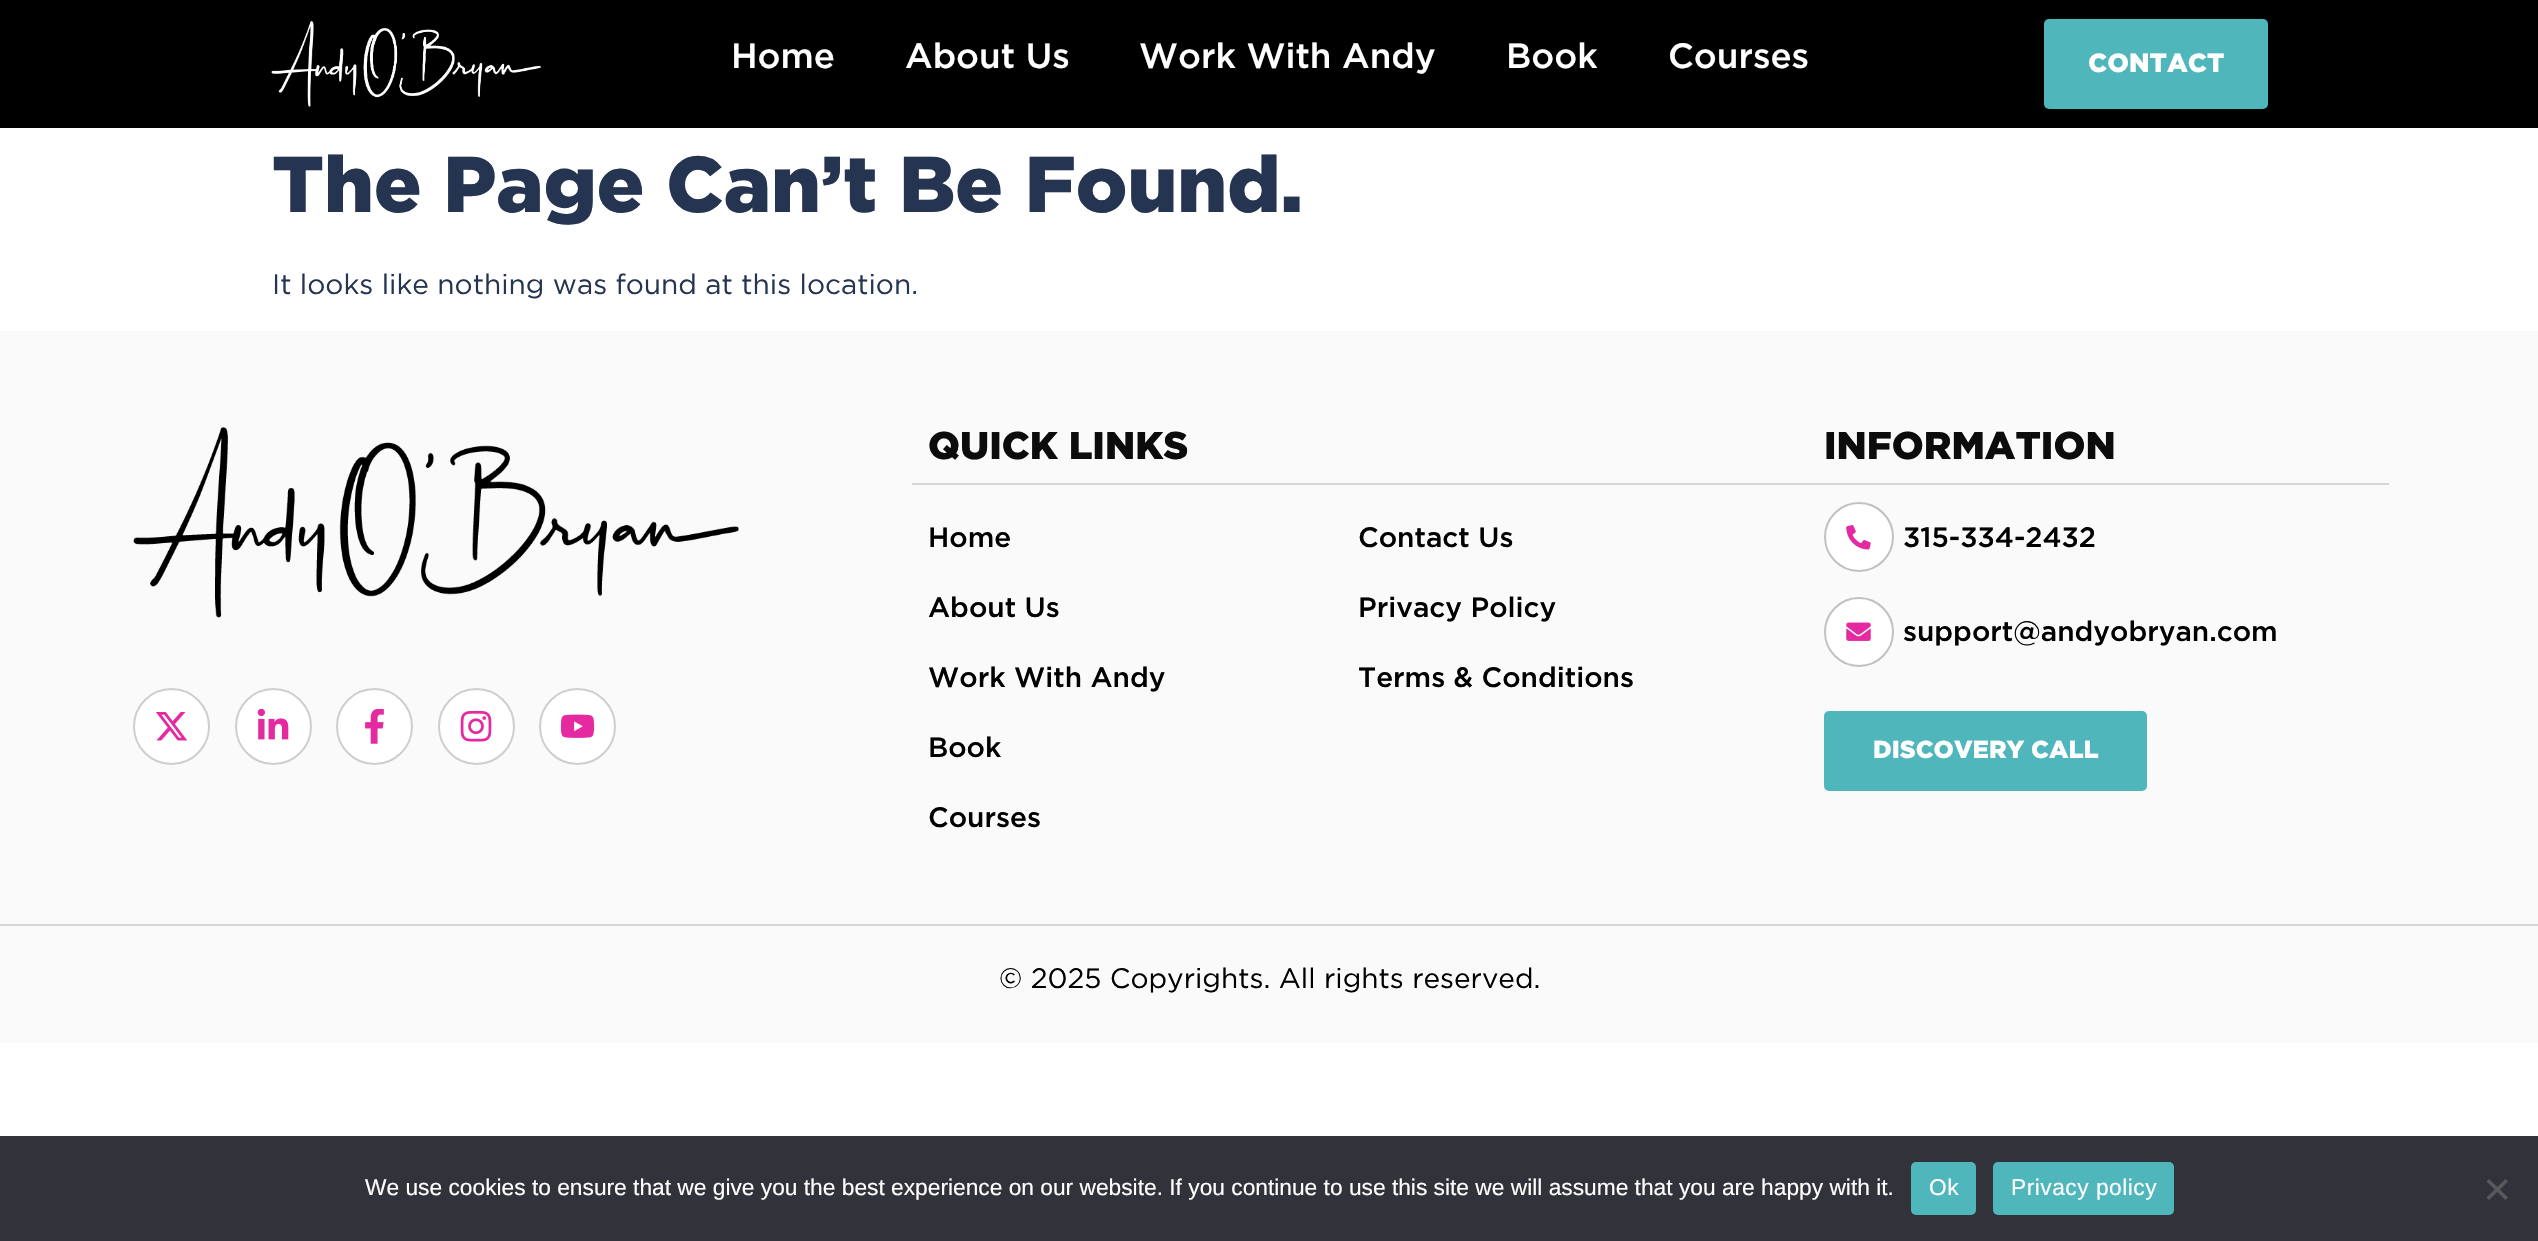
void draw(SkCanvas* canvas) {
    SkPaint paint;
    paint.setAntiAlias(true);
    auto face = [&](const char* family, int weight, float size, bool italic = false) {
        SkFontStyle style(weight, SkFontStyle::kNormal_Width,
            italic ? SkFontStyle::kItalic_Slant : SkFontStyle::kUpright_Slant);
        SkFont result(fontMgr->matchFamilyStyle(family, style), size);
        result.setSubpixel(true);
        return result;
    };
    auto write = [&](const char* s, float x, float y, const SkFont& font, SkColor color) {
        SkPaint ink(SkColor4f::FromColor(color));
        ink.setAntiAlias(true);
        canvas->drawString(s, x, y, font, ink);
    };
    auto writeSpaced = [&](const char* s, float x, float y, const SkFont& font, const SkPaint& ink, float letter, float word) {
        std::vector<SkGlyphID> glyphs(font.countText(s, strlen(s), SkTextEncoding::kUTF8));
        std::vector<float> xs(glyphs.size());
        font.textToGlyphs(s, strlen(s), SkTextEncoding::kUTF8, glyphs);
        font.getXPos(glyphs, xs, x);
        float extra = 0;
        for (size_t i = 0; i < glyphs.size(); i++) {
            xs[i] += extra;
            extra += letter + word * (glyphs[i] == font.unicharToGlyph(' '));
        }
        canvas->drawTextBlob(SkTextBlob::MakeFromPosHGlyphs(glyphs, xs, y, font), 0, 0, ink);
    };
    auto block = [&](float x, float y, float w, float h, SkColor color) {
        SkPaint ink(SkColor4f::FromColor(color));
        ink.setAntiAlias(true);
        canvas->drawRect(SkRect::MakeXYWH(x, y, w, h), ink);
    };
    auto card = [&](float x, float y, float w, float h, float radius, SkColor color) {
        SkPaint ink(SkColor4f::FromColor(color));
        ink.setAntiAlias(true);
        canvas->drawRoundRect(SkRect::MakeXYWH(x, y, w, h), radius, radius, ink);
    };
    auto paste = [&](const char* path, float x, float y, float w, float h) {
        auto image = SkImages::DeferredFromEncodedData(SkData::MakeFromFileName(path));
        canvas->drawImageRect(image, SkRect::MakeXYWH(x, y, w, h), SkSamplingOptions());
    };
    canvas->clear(SK_ColorWHITE);
    block(0, 0, 2538, 128, SK_ColorBLACK);
    paste("pic1.png", 271, 21, 270, 86);
    auto kFont1 = face("Gotham", 500, 35);
    write("Home", 731, 68, kFont1, SK_ColorWHITE);
    write("About Us", 905, 68, kFont1, SK_ColorWHITE);
    write("Work With Andy", 1139, 68, kFont1, SK_ColorWHITE);
    write("Book", 1506, 68, kFont1, SK_ColorWHITE);
    write("Courses", 1668, 68, kFont1, SK_ColorWHITE);
    card(2044, 19, 224, 90, 5, SkColorSetRGB(79, 182, 187));
    auto kFont2 = face("Gotham", 900, 26.25f);
    write("CONTACT", 2088, 72, kFont2, SK_ColorWHITE);
    auto kFont3 = face("Gotham", 900, 78.75f);
    write("The Page Can’t Be Found.", 272, 212, kFont3, SkColorSetRGB(37, 52, 81));
    auto kFont4 = face("Gotham", 400, 28);
    write("It looks like nothing was found at this location.", 272, 294, kFont4, SkColorSetRGB(37, 52, 81));
    block(0, 331, 2538, 593, SkColorSetRGB(250, 250, 250));
    paste("pic2.png", 133, 427, 606, 191);
    paint.setColor(SK_ColorWHITE);
    canvas->drawCircle(171.5f, 726.5f, 37.5f, paint);
    paint.setStyle(SkPaint::kStroke_Style);
    paint.setStrokeWidth(2);
    paint.setColor(SkColorSetRGB(206, 206, 206));
    canvas->drawCircle(171.5f, 726.5f, 37.5f, paint);
    paste("pic3.png", 156, 712, 32, 29);
    paint.setStyle(SkPaint::kFill_Style);
    paint.setColor(SK_ColorWHITE);
    canvas->drawCircle(273.5f, 726.5f, 37.5f, paint);
    paint.setStyle(SkPaint::kStroke_Style);
    paint.setColor(SkColorSetRGB(206, 206, 206));
    canvas->drawCircle(273.5f, 726.5f, 37.5f, paint);
    paste("pic4.png", 257, 709, 32, 31);
    paint.setStyle(SkPaint::kFill_Style);
    paint.setColor(SK_ColorWHITE);
    canvas->drawCircle(374.5f, 726.5f, 37.5f, paint);
    paint.setStyle(SkPaint::kStroke_Style);
    paint.setColor(SkColorSetRGB(206, 206, 206));
    canvas->drawCircle(374.5f, 726.5f, 37.5f, paint);
    paste("pic5.png", 365, 709, 19, 35);
    paint.setStyle(SkPaint::kFill_Style);
    paint.setColor(SK_ColorWHITE);
    canvas->drawCircle(476.5f, 726.5f, 37.5f, paint);
    paint.setStyle(SkPaint::kStroke_Style);
    paint.setColor(SkColorSetRGB(206, 206, 206));
    canvas->drawCircle(476.5f, 726.5f, 37.5f, paint);
    paste("pic6.png", 460, 710, 32, 32);
    paint.setStyle(SkPaint::kFill_Style);
    paint.setColor(SK_ColorWHITE);
    canvas->drawCircle(577.5f, 726.5f, 37.5f, paint);
    paint.setStyle(SkPaint::kStroke_Style);
    paint.setColor(SkColorSetRGB(206, 206, 206));
    canvas->drawCircle(577.5f, 726.5f, 37.5f, paint);
    paste("pic7.png", 560, 714, 35, 24);
    block(912, 483, 1477, 2, SkColorSetRGB(214, 214, 214));
    auto kFont5 = face("Gotham", 900, 38.5f);
    write("QUICK LINKS", 928, 459, kFont5, SkColorSetRGB(12, 12, 12));
    write("INFORMATION", 1824, 459, kFont5, SkColorSetRGB(12, 12, 12));
    auto kFont6 = face("Gotham", 500, 28);
    write("Home", 928, 547, kFont6, SK_ColorBLACK);
    write("About Us", 928, 617, kFont6, SK_ColorBLACK);
    write("Work With Andy", 928, 687, kFont6, SK_ColorBLACK);
    write("Book", 928, 757, kFont6, SK_ColorBLACK);
    write("Courses", 928, 827, kFont6, SK_ColorBLACK);
    write("Contact Us", 1358, 547, kFont6, SK_ColorBLACK);
    write("Privacy Policy", 1358, 617, kFont6, SK_ColorBLACK);
    write("Terms & Conditions", 1358, 687, kFont6, SK_ColorBLACK);
    paint.setStyle(SkPaint::kFill_Style);
    paint.setColor(SK_ColorWHITE);
    canvas->drawCircle(1859, 537, 34, paint);
    paint.setStyle(SkPaint::kStroke_Style);
    paint.setColor(SkColorSetRGB(193, 193, 193));
    canvas->drawCircle(1859, 537, 34, paint);
    paste("pic8.png", 1846, 525, 25, 25);
    write("315-334-2432", 1903, 547, kFont6, SK_ColorBLACK);
    paint.setStyle(SkPaint::kFill_Style);
    paint.setColor(SK_ColorWHITE);
    canvas->drawCircle(1859, 632, 34, paint);
    paint.setStyle(SkPaint::kStroke_Style);
    paint.setColor(SkColorSetRGB(193, 193, 193));
    canvas->drawCircle(1859, 632, 34, paint);
    paste("pic9.png", 1846, 622, 25, 19);
    write("support@andyobryan.com", 1903, 641, kFont6, SK_ColorBLACK);
    card(1824, 711, 323, 80, 5, SkColorSetRGB(79, 182, 187));
    auto kFont7 = face("Gotham", 900, 24.5f);
    write("DISCOVERY CALL", 1873, 758, kFont7, SK_ColorWHITE);
    block(0, 926, 2538, 117, SkColorSetRGB(250, 250, 250));
    block(0, 924, 2538, 2, SkColorSetRGB(214, 214, 214));
    write("© 2025 Copyrights. All rights reserved.", 999, 988, kFont4, SK_ColorBLACK);
    block(0, 1136, 2538, 105, SkColorSetRGB(50, 50, 58));
    auto kFont8 = face("Liberation Sans", 400, 22.75f);
    write("We use cookies to ensure that we give you the best experience on our website. If you continue to use this site we will assume that you are happy with it.", 365, 1195, kFont8, SK_ColorWHITE);
    card(1911, 1162, 65, 53, 5, SkColorSetRGB(79, 182, 187));
    paint.setStyle(SkPaint::kFill_Style);
    paint.setColor(SK_ColorWHITE);
    writeSpaced("Ok", 1929, 1195, kFont8, paint, 0.5f, 0);
    card(1993, 1162, 181, 53, 5, SkColorSetRGB(79, 182, 187));
    writeSpaced("Privacy policy", 2011, 1195, kFont8, paint, 0.5f, 0);
    paint.setColor(SkColorSetRGB(89, 89, 93));
    canvas->drawPath(SkPathBuilder().moveTo(2505.5f, 1179).lineTo(2508, 1181.5f).lineTo(2489, 1200).lineTo(2486.5f, 1197.5f).close().detach(), paint);
    canvas->drawPath(SkPathBuilder().moveTo(2486.5f, 1181.5f).lineTo(2489, 1179).lineTo(2508, 1197.5f).lineTo(2505.5f, 1200).close().detach(), paint);
}
